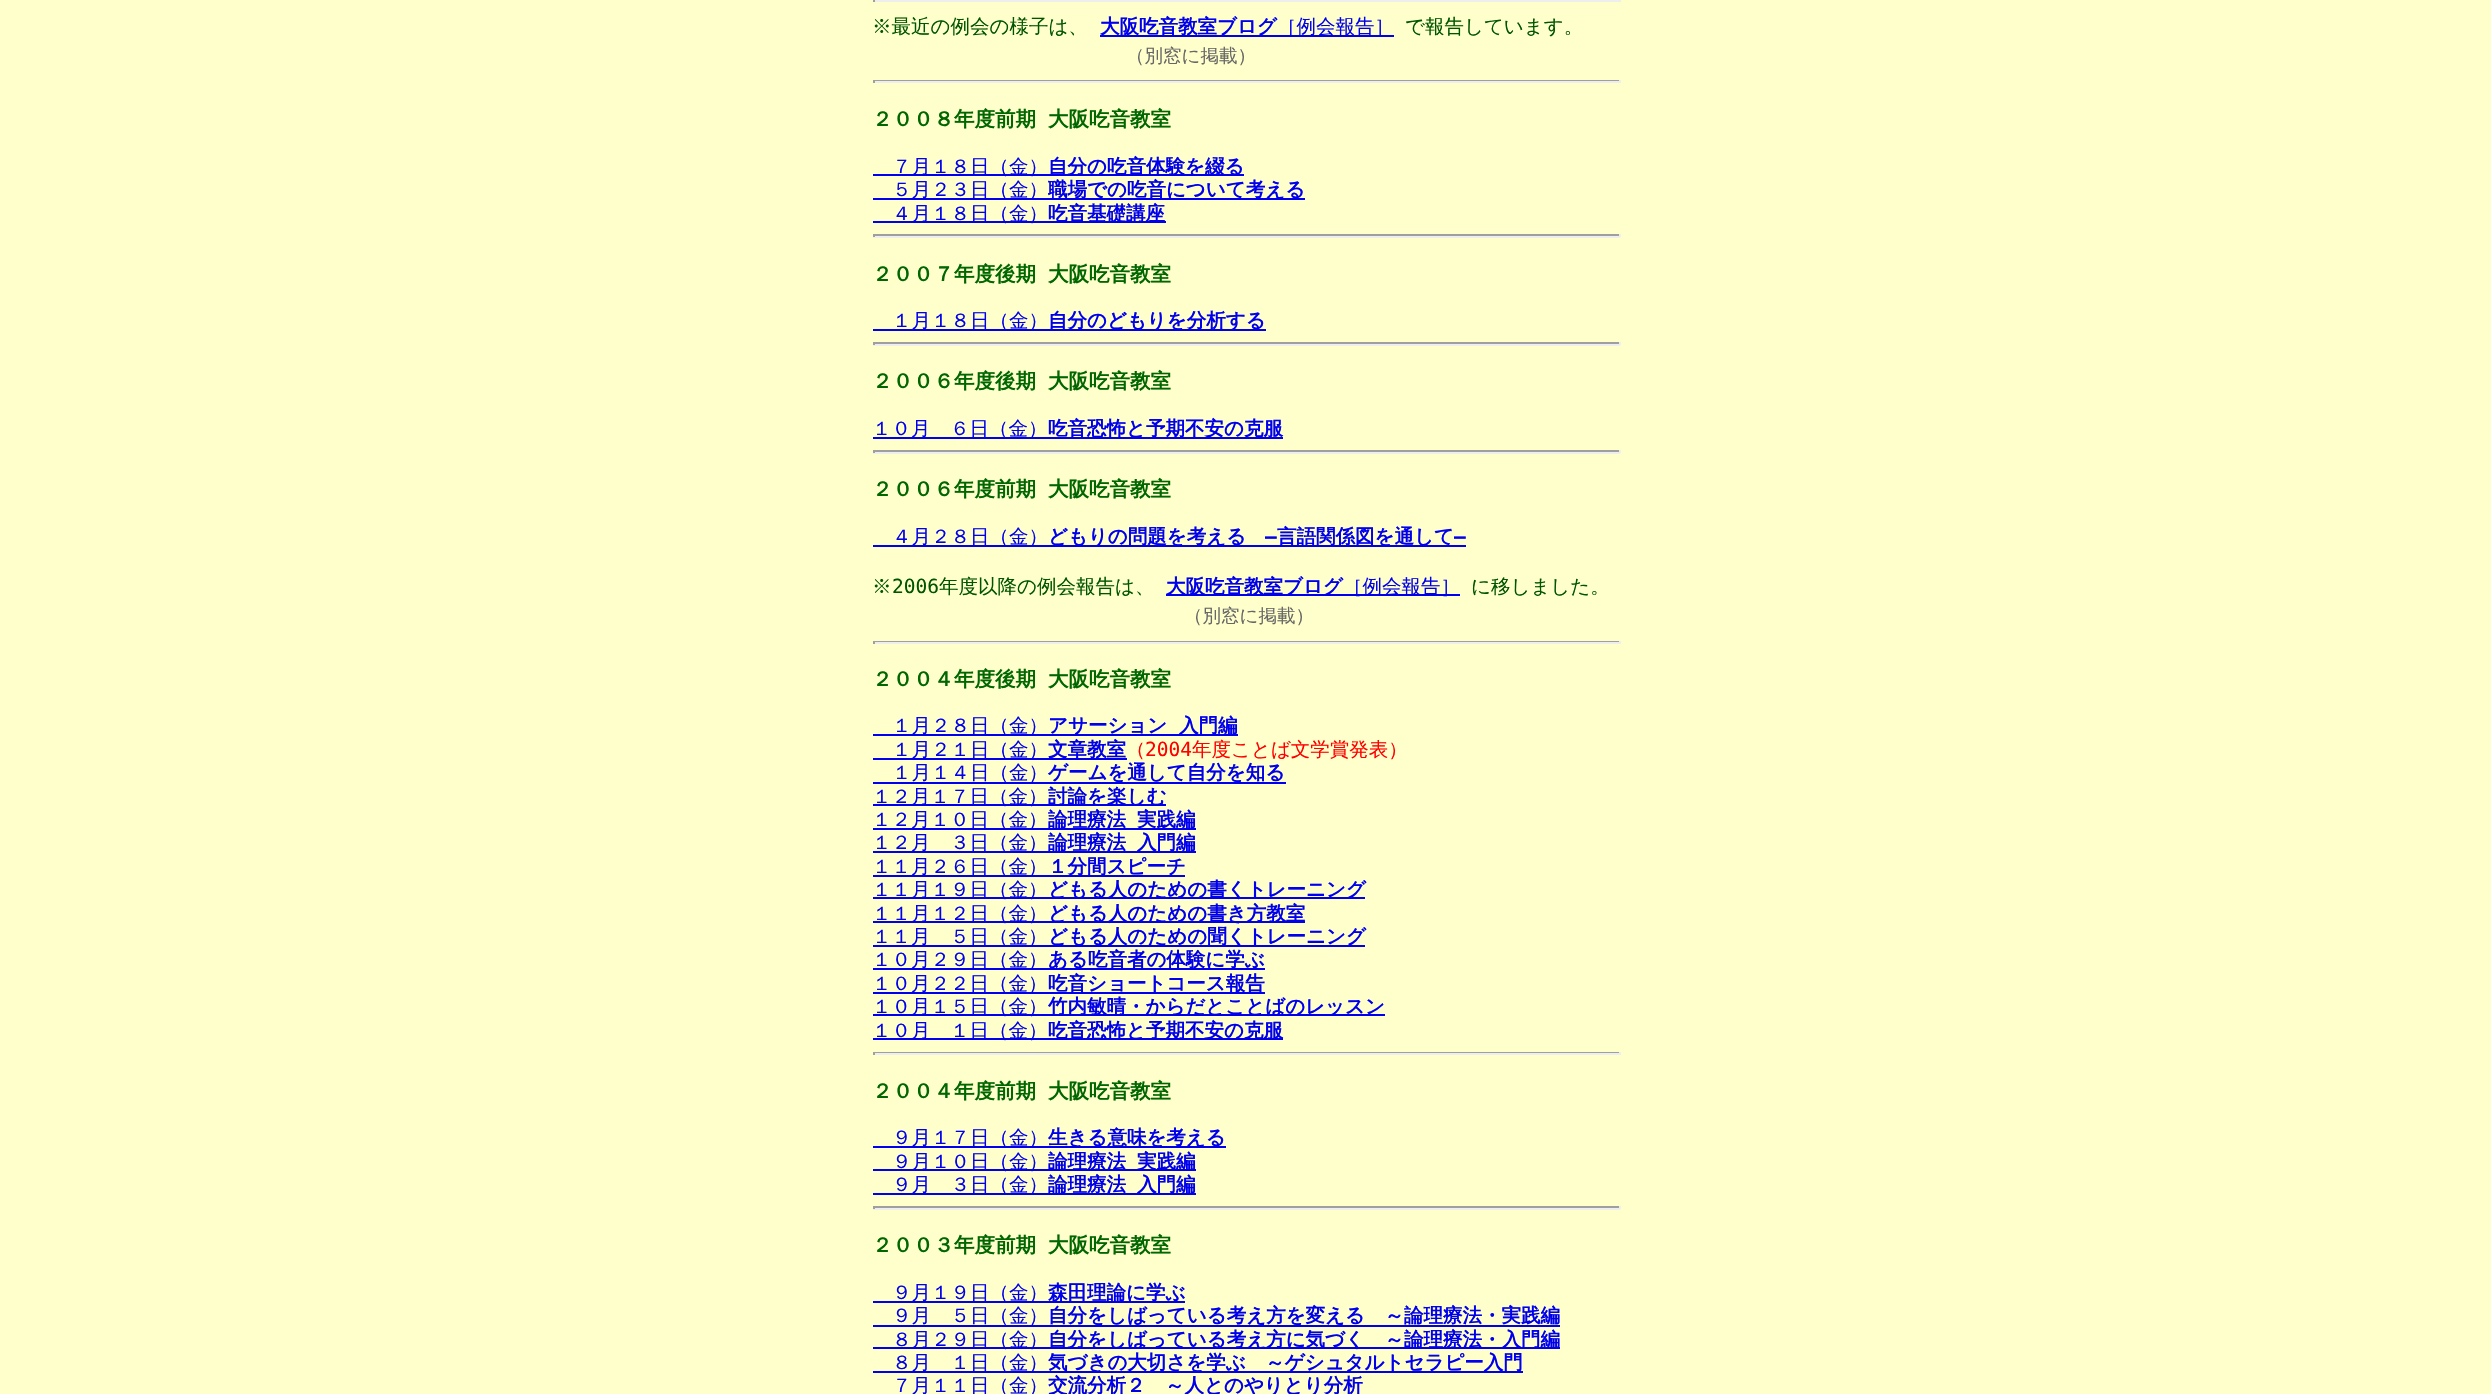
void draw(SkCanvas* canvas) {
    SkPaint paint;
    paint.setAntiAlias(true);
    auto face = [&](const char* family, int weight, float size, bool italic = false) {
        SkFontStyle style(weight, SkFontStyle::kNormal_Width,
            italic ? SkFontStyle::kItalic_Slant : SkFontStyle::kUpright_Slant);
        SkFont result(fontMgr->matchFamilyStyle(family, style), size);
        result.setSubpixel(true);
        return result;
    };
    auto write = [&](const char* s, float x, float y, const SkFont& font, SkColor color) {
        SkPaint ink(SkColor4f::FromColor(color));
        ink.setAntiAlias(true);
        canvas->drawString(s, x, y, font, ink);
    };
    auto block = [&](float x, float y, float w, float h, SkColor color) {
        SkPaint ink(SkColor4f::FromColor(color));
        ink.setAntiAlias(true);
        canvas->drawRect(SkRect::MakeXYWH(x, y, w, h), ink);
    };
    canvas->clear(SkColorSetRGB(255, 255, 204));
    block(873, 0, 748, 2, SkColorSetRGB(238, 238, 238));
    block(873, 0, 2, 2, SkColorSetRGB(159, 159, 159));
    auto kFont1 = face("WenQuanYi Zen Hei", 500, 19.5f);
    write("※最近の例会の様子は、", 872, 33, kFont1, SkColorSetRGB(0, 85, 0));
    block(1100, 35, 294, 2, SkColorSetRGB(0, 0, 238));
    auto kFont2 = face("WenQuanYi Zen Hei", 700, 19.5f);
    write("大阪吃音教室ブログ", 1100, 33, kFont2, SkColorSetRGB(0, 0, 238));
    write("［例会報告］", 1277, 33, kFont1, SkColorSetRGB(0, 0, 238));
    write("で報告しています。", 1405, 33, kFont1, SkColorSetRGB(0, 85, 0));
    auto kFont3 = face("WenQuanYi Zen Hei", 500, 18.5f);
    write("（別窓に掲載）", 1126, 62, kFont3, SkColorSetRGB(102, 102, 102));
    block(873, 80, 747, 1, SkColorSetRGB(159, 159, 159));
    block(1619, 80, 2, 3, SkColorSetRGB(238, 238, 238));
    block(873, 81, 747, 2, SkColorSetRGB(238, 238, 238));
    block(873, 80, 2, 3, SkColorSetRGB(159, 159, 159));
    auto kFont4 = face("WenQuanYi Zen Hei", 700, 20.5f);
    write("２００８年度前期", 872, 126, kFont4, SkColorSetRGB(0, 102, 0));
    write("大阪吃音教室", 1048, 126, kFont4, SkColorSetRGB(0, 102, 0));
    block(873, 174, 371, 2, SkColorSetRGB(0, 0, 238));
    write("７月１８日（金）", 892, 173, kFont1, SkColorSetRGB(0, 0, 238));
    write("自分の吃音体験を綴る", 1048, 173, kFont2, SkColorSetRGB(0, 0, 238));
    block(873, 198, 432, 2, SkColorSetRGB(0, 0, 238));
    write("５月２３日（金）", 892, 196, kFont1, SkColorSetRGB(0, 0, 238));
    write("職場での吃音について考える", 1048, 196, kFont2, SkColorSetRGB(0, 0, 238));
    block(873, 221, 293, 2, SkColorSetRGB(0, 0, 238));
    write("４月１８日（金）", 892, 220, kFont1, SkColorSetRGB(0, 0, 238));
    write("吃音基礎講座", 1048, 220, kFont2, SkColorSetRGB(0, 0, 238));
    block(873, 234, 747, 2, SkColorSetRGB(159, 159, 159));
    block(1619, 234, 2, 3, SkColorSetRGB(238, 238, 238));
    block(873, 236, 747, 2, SkColorSetRGB(238, 238, 238));
    block(873, 234, 2, 3, SkColorSetRGB(159, 159, 159));
    write("２００７年度後期", 872, 281, kFont4, SkColorSetRGB(0, 102, 0));
    write("大阪吃音教室", 1048, 281, kFont4, SkColorSetRGB(0, 102, 0));
    block(873, 329, 393, 2, SkColorSetRGB(0, 0, 238));
    write("１月１８日（金）", 892, 327, kFont1, SkColorSetRGB(0, 0, 238));
    write("自分のどもりを分析する", 1048, 327, kFont2, SkColorSetRGB(0, 0, 238));
    block(873, 342, 747, 2, SkColorSetRGB(159, 159, 159));
    block(1619, 342, 2, 3, SkColorSetRGB(238, 238, 238));
    block(873, 344, 747, 2, SkColorSetRGB(238, 238, 238));
    block(873, 342, 2, 3, SkColorSetRGB(159, 159, 159));
    write("２００６年度後期", 872, 388, kFont4, SkColorSetRGB(0, 102, 0));
    write("大阪吃音教室", 1048, 388, kFont4, SkColorSetRGB(0, 102, 0));
    block(873, 437, 410, 2, SkColorSetRGB(0, 0, 238));
    write("１０月　６日（金）", 872, 435, kFont1, SkColorSetRGB(0, 0, 238));
    write("吃音恐怖と予期不安の克服", 1048, 435, kFont2, SkColorSetRGB(0, 0, 238));
    block(873, 450, 747, 2, SkColorSetRGB(159, 159, 159));
    block(1619, 450, 2, 3, SkColorSetRGB(238, 238, 238));
    block(873, 452, 747, 2, SkColorSetRGB(238, 238, 238));
    block(873, 450, 2, 3, SkColorSetRGB(159, 159, 159));
    write("２００６年度前期", 872, 496, kFont4, SkColorSetRGB(0, 102, 0));
    write("大阪吃音教室", 1048, 496, kFont4, SkColorSetRGB(0, 102, 0));
    block(873, 545, 593, 2, SkColorSetRGB(0, 0, 238));
    write("４月２８日（金）", 892, 543, kFont1, SkColorSetRGB(0, 0, 238));
    write("どもりの問題を考える", 1048, 543, kFont2, SkColorSetRGB(0, 0, 238));
    auto kFont5 = face("DejaVu Sans Mono", 700, 19.5f);
    write("―", 1265, 543, kFont5, SkColorSetRGB(0, 0, 238));
    write("言語関係図を通して", 1277, 543, kFont2, SkColorSetRGB(0, 0, 238));
    write("―", 1454, 543, kFont5, SkColorSetRGB(0, 0, 238));
    write("※", 872, 593, kFont1, SkColorSetRGB(0, 85, 0));
    auto kFont6 = face("DejaVu Sans Mono", 400, 19.5f);
    write("2006", 892, 593, kFont6, SkColorSetRGB(0, 85, 0));
    write("年度以降の例会報告は、", 939, 593, kFont1, SkColorSetRGB(0, 85, 0));
    block(1166, 594, 294, 2, SkColorSetRGB(0, 0, 238));
    write("大阪吃音教室ブログ", 1166, 593, kFont2, SkColorSetRGB(0, 0, 238));
    write("［例会報告］", 1343, 593, kFont1, SkColorSetRGB(0, 0, 238));
    write("に移しました。", 1471, 593, kFont1, SkColorSetRGB(0, 85, 0));
    write("（別窓に掲載）", 1184, 622, kFont3, SkColorSetRGB(102, 102, 102));
    block(873, 641, 747, 1, SkColorSetRGB(159, 159, 159));
    block(1619, 641, 2, 3, SkColorSetRGB(238, 238, 238));
    block(873, 642, 747, 2, SkColorSetRGB(238, 238, 238));
    block(873, 641, 2, 3, SkColorSetRGB(159, 159, 159));
    write("２００４年度後期", 872, 686, kFont4, SkColorSetRGB(0, 102, 0));
    write("大阪吃音教室", 1048, 686, kFont4, SkColorSetRGB(0, 102, 0));
    block(873, 734, 365, 2, SkColorSetRGB(0, 0, 238));
    write("１月２８日（金）", 892, 732, kFont1, SkColorSetRGB(0, 0, 238));
    write("アサーション", 1048, 732, kFont2, SkColorSetRGB(0, 0, 238));
    write("入門編", 1179, 732, kFont2, SkColorSetRGB(0, 0, 238));
    block(873, 758, 254, 2, SkColorSetRGB(0, 0, 238));
    write("１月２１日（金）", 892, 756, kFont1, SkColorSetRGB(0, 0, 238));
    write("文章教室", 1048, 756, kFont2, SkColorSetRGB(0, 0, 238));
    write("（", 1126, 756, kFont1, SkColorSetRGB(255, 0, 0));
    write("2004", 1145, 756, kFont6, SkColorSetRGB(255, 0, 0));
    write("年度ことば文学賞発表）", 1192, 756, kFont1, SkColorSetRGB(255, 0, 0));
    block(873, 782, 413, 2, SkColorSetRGB(0, 0, 238));
    write("１月１４日（金）", 892, 779, kFont1, SkColorSetRGB(0, 0, 238));
    write("ゲームを通して自分を知る", 1048, 779, kFont2, SkColorSetRGB(0, 0, 238));
    block(873, 804, 293, 2, SkColorSetRGB(0, 0, 238));
    write("１２月１７日（金）", 872, 803, kFont1, SkColorSetRGB(0, 0, 238));
    write("討論を楽しむ", 1048, 803, kFont2, SkColorSetRGB(0, 0, 238));
    block(873, 828, 323, 2, SkColorSetRGB(0, 0, 238));
    write("１２月１０日（金）", 872, 826, kFont1, SkColorSetRGB(0, 0, 238));
    write("論理療法", 1048, 826, kFont2, SkColorSetRGB(0, 0, 238));
    write("実践編", 1137, 826, kFont2, SkColorSetRGB(0, 0, 238));
    block(873, 851, 323, 2, SkColorSetRGB(0, 0, 238));
    write("１２月　３日（金）", 872, 849, kFont1, SkColorSetRGB(0, 0, 238));
    write("論理療法", 1048, 849, kFont2, SkColorSetRGB(0, 0, 238));
    write("入門編", 1137, 849, kFont2, SkColorSetRGB(0, 0, 238));
    block(873, 875, 312, 2, SkColorSetRGB(0, 0, 238));
    write("１１月２６日（金）", 872, 873, kFont1, SkColorSetRGB(0, 0, 238));
    write("１分間スピーチ", 1048, 873, kFont2, SkColorSetRGB(0, 0, 238));
    block(873, 897, 492, 2, SkColorSetRGB(0, 0, 238));
    write("１１月１９日（金）", 872, 896, kFont1, SkColorSetRGB(0, 0, 238));
    write("どもる人のための書くトレーニング", 1048, 896, kFont2, SkColorSetRGB(0, 0, 238));
    block(873, 921, 432, 2, SkColorSetRGB(0, 0, 238));
    write("１１月１２日（金）", 872, 920, kFont1, SkColorSetRGB(0, 0, 238));
    write("どもる人のための書き方教室", 1048, 920, kFont2, SkColorSetRGB(0, 0, 238));
    block(873, 945, 492, 2, SkColorSetRGB(0, 0, 238));
    write("１１月　５日（金）", 872, 943, kFont1, SkColorSetRGB(0, 0, 238));
    write("どもる人のための聞くトレーニング", 1048, 943, kFont2, SkColorSetRGB(0, 0, 238));
    block(873, 968, 392, 2, SkColorSetRGB(0, 0, 238));
    write("１０月２９日（金）", 872, 966, kFont1, SkColorSetRGB(0, 0, 238));
    write("ある吃音者の体験に学ぶ", 1048, 966, kFont2, SkColorSetRGB(0, 0, 238));
    block(873, 992, 392, 2, SkColorSetRGB(0, 0, 238));
    write("１０月２２日（金）", 872, 990, kFont1, SkColorSetRGB(0, 0, 238));
    write("吃音ショートコース報告", 1048, 990, kFont2, SkColorSetRGB(0, 0, 238));
    block(873, 1014, 512, 2, SkColorSetRGB(0, 0, 238));
    write("１０月１５日（金）", 872, 1013, kFont1, SkColorSetRGB(0, 0, 238));
    write("竹内敏晴・からだとことばのレッスン", 1048, 1013, kFont2, SkColorSetRGB(0, 0, 238));
    block(873, 1038, 410, 2, SkColorSetRGB(0, 0, 238));
    write("１０月　１日（金）", 872, 1037, kFont1, SkColorSetRGB(0, 0, 238));
    write("吃音恐怖と予期不安の克服", 1048, 1037, kFont2, SkColorSetRGB(0, 0, 238));
    block(873, 1052, 747, 1, SkColorSetRGB(159, 159, 159));
    block(1619, 1052, 2, 3, SkColorSetRGB(238, 238, 238));
    block(873, 1053, 747, 2, SkColorSetRGB(238, 238, 238));
    block(873, 1052, 2, 3, SkColorSetRGB(159, 159, 159));
    write("２００４年度前期", 872, 1098, kFont4, SkColorSetRGB(0, 102, 0));
    write("大阪吃音教室", 1048, 1098, kFont4, SkColorSetRGB(0, 102, 0));
    block(873, 1146, 353, 2, SkColorSetRGB(0, 0, 238));
    write("９月１７日（金）", 892, 1144, kFont1, SkColorSetRGB(0, 0, 238));
    write("生きる意味を考える", 1048, 1144, kFont2, SkColorSetRGB(0, 0, 238));
    block(873, 1169, 323, 2, SkColorSetRGB(0, 0, 238));
    write("９月１０日（金）", 892, 1168, kFont1, SkColorSetRGB(0, 0, 238));
    write("論理療法", 1048, 1168, kFont2, SkColorSetRGB(0, 0, 238));
    write("実践編", 1137, 1168, kFont2, SkColorSetRGB(0, 0, 238));
    block(873, 1193, 323, 2, SkColorSetRGB(0, 0, 238));
    write("９月　３日（金）", 892, 1191, kFont1, SkColorSetRGB(0, 0, 238));
    write("論理療法", 1048, 1191, kFont2, SkColorSetRGB(0, 0, 238));
    write("入門編", 1137, 1191, kFont2, SkColorSetRGB(0, 0, 238));
    block(873, 1206, 747, 2, SkColorSetRGB(159, 159, 159));
    block(1619, 1206, 2, 3, SkColorSetRGB(238, 238, 238));
    block(873, 1208, 747, 2, SkColorSetRGB(238, 238, 238));
    block(873, 1206, 2, 3, SkColorSetRGB(159, 159, 159));
    write("２００３年度前期", 872, 1252, kFont4, SkColorSetRGB(0, 102, 0));
    write("大阪吃音教室", 1048, 1252, kFont4, SkColorSetRGB(0, 102, 0));
    block(873, 1301, 312, 2, SkColorSetRGB(0, 0, 238));
    write("９月１９日（金）", 892, 1299, kFont1, SkColorSetRGB(0, 0, 238));
    write("森田理論に学ぶ", 1048, 1299, kFont2, SkColorSetRGB(0, 0, 238));
    block(873, 1325, 687, 2, SkColorSetRGB(0, 0, 238));
    write("９月　５日（金）", 892, 1322, kFont1, SkColorSetRGB(0, 0, 238));
    write("自分をしばっている考え方を変える　～論理療法・実践編", 1048, 1322, kFont2, SkColorSetRGB(0, 0, 238));
    block(873, 1347, 687, 2, SkColorSetRGB(0, 0, 238));
    write("８月２９日（金）", 892, 1346, kFont1, SkColorSetRGB(0, 0, 238));
    write("自分をしばっている考え方に気づく　～論理療法・入門編", 1048, 1346, kFont2, SkColorSetRGB(0, 0, 238));
    block(873, 1371, 650, 2, SkColorSetRGB(0, 0, 238));
    write("８月　１日（金）", 892, 1369, kFont1, SkColorSetRGB(0, 0, 238));
    write("気づきの大切さを学ぶ　～ゲシュタルトセラピー入門", 1048, 1369, kFont2, SkColorSetRGB(0, 0, 238));
    write("７月１１日（金）", 892, 1392, kFont1, SkColorSetRGB(0, 0, 238));
    write("交流分析２　～人とのやりとり分析", 1048, 1392, kFont2, SkColorSetRGB(0, 0, 238));
}
